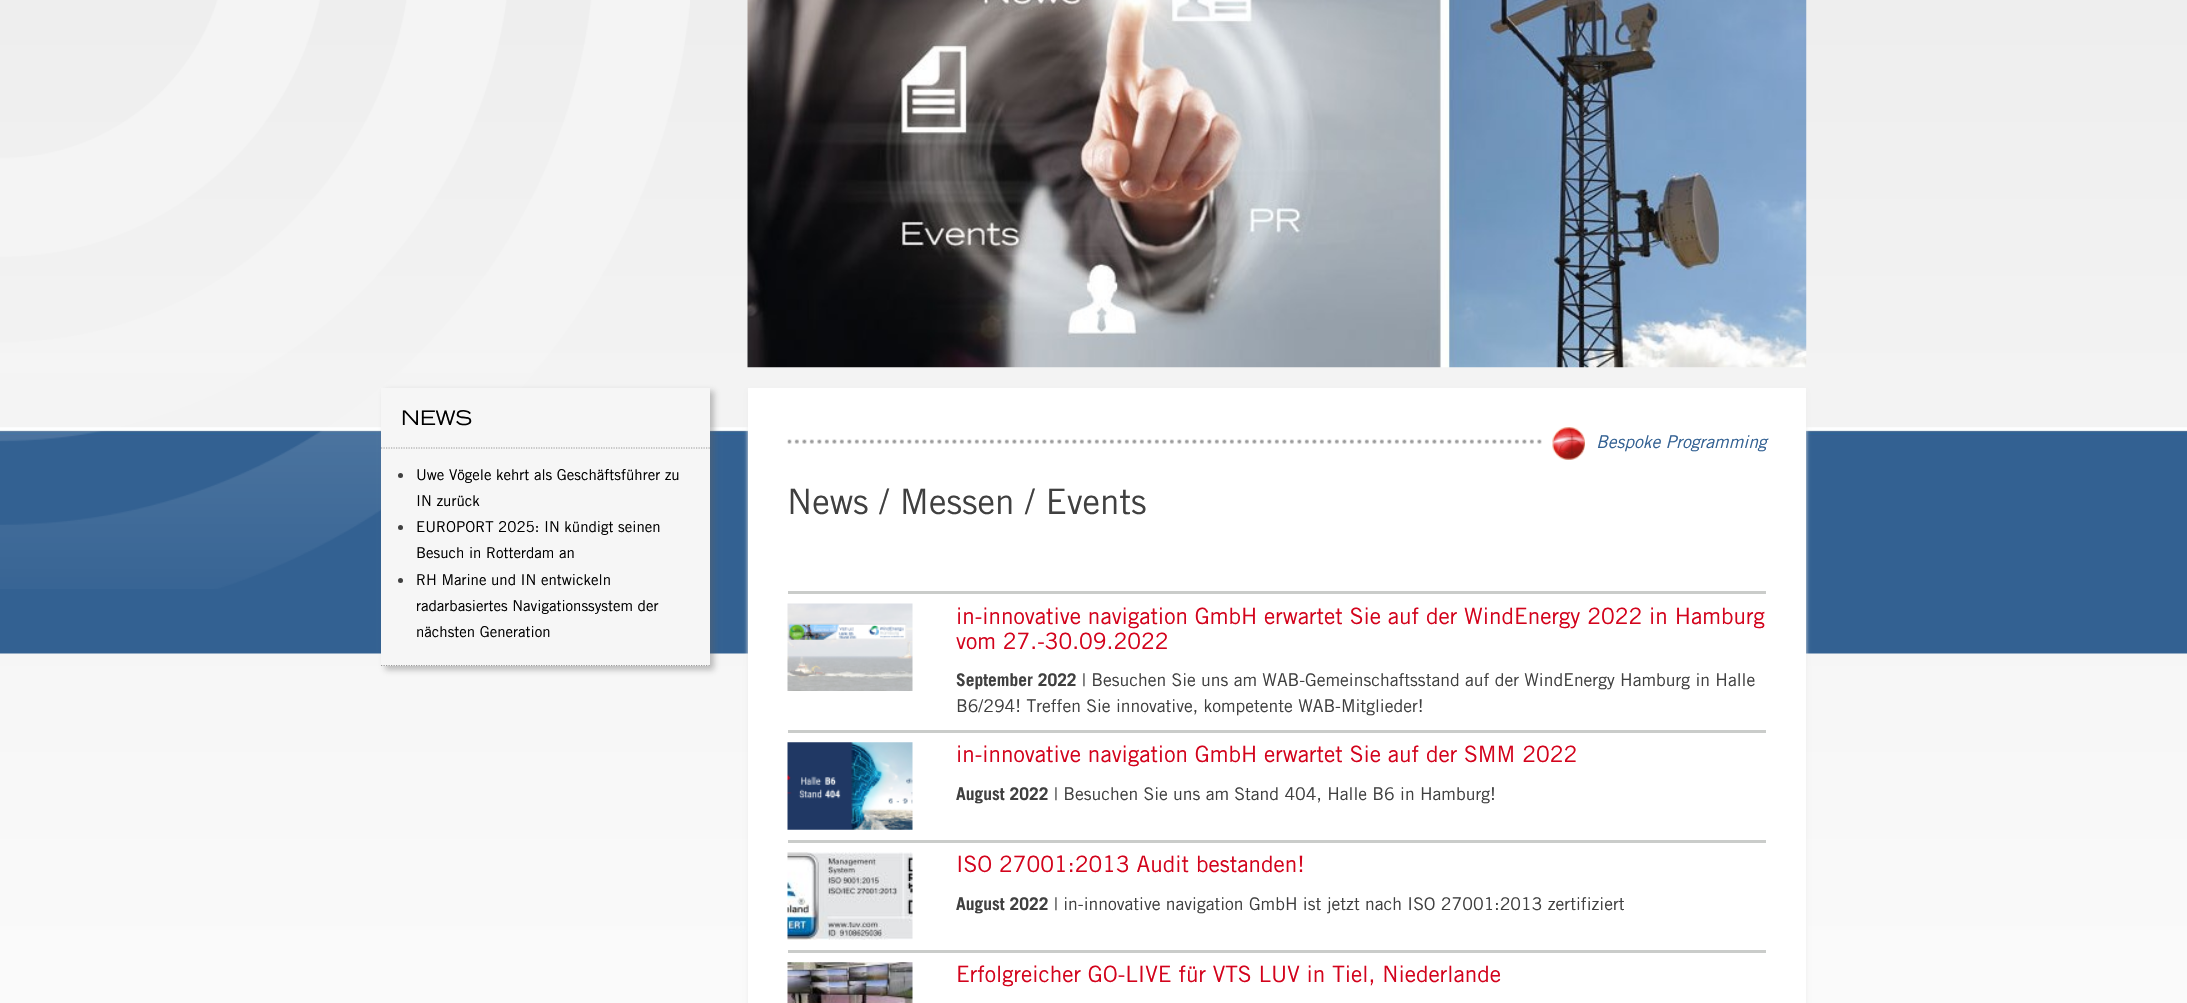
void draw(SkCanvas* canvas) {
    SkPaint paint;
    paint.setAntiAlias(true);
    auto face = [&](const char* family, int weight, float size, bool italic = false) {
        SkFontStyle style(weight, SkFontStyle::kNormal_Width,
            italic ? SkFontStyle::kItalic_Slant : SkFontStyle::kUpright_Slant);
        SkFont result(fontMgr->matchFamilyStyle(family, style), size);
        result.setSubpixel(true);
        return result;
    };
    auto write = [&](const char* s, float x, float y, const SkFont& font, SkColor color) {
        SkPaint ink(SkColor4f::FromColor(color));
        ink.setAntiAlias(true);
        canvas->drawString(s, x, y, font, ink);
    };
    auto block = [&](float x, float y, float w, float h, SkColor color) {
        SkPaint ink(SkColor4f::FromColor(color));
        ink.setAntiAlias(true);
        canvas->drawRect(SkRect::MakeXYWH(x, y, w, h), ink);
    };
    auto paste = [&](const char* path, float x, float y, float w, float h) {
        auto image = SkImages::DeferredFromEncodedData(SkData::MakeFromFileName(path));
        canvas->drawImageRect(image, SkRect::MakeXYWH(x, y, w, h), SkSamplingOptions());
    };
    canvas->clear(SK_ColorWHITE);
    {
        const SkColor colors[] = {SkColorSetRGB(237, 237, 237), SkColorSetRGB(246, 246, 246), SK_ColorWHITE};
        const float stops[] = {0, 0.47f, 1};
        const SkPoint ends[] = {{1094, -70}, {1094, 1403}};
        paint.setShader(SkGradientShader::MakeLinear(ends, colors, stops, 3, SkTileMode::kClamp));
        paint.setAlpha(255);
    }
    canvas->drawRect(SkRect::MakeXYWH(0, 0, 2187, 1003), paint);
    paste("pic1.png", 0, 427, 2187, 227);
    paste("pic2.png", 0, 0, 690, 589);
    paste("pic3.png", 747, 0, 1060, 368);
    paint.setShader(nullptr);
    paint.setColor(SkColorSetARGB(102, 97, 97, 97));
    paint.setMaskFilter(SkMaskFilter::MakeBlur(kNormal_SkBlurStyle, 3));
    canvas->drawRect(SkRect::MakeXYWH(385, 391, 329, 279), paint);
    paint.setMaskFilter(nullptr);
    block(381, 388, 329, 278, SkColorSetRGB(246, 246, 246));
    paint.setStyle(SkPaint::kStroke_Style);
    paint.setStrokeWidth(1.2f);
    paint.setColor(SkColorSetRGB(153, 153, 153));
    paint.setPathEffect(SkDashPathEffect::Make({{1.25f, 1.25f}}, 0));
    canvas->drawPath(SkPathBuilder().moveTo(381, 448).lineTo(710, 448).detach(), paint);
    paint.setPathEffect(nullptr);
    auto kFont1 = face("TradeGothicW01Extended", 400, 20);
    write("NEWS", 401, 425, kFont1, SK_ColorBLACK);
    paint.setPathEffect(SkDashPathEffect::Make({{1.25f, 1.25f}}, 0));
    canvas->drawPath(SkPathBuilder().moveTo(381, 665.5f).lineTo(710, 665.5f).detach(), paint);
    paint.setPathEffect(nullptr);
    paint.setStyle(SkPaint::kFill_Style);
    paint.setColor(SkColorSetRGB(64, 64, 64));
    canvas->drawCircle(400.5f, 475.5f, 2.5f, paint);
    auto kFont2 = face("Trade Gothic", 400, 15);
    write("Uwe Vögele kehrt als Geschäftsführer zu", 416, 480, kFont2, SK_ColorBLACK);
    write("IN zurück", 416, 506, kFont2, SK_ColorBLACK);
    canvas->drawCircle(400.5f, 527.5f, 2.5f, paint);
    write("EUROPORT 2025: IN kündigt seinen", 416, 532, kFont2, SK_ColorBLACK);
    write("Besuch in Rotterdam an", 416, 558, kFont2, SK_ColorBLACK);
    canvas->drawCircle(400.5f, 580.5f, 2.5f, paint);
    write("RH Marine und IN entwickeln", 416, 585, kFont2, SK_ColorBLACK);
    write("radarbasiertes Navigationssystem der", 416, 611, kFont2, SK_ColorBLACK);
    write("nächsten Generation", 416, 637, kFont2, SK_ColorBLACK);
    paint.setColor(SkColorSetRGB(237, 237, 237));
    paint.setMaskFilter(SkMaskFilter::MakeBlur(kNormal_SkBlurStyle, 2));
    canvas->drawRect(SkRect::MakeXYWH(748, 391, 1058, 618), paint);
    paint.setMaskFilter(nullptr);
    block(748, 388, 1058, 615, SK_ColorWHITE);
    paste("pic4.png", 787, 439, 980, 5);
    block(1544, 439, 222, 5, SK_ColorWHITE);
    paste("pic5.png", 1552, 427, 33, 33);
    auto kFont3 = face("Trade Gothic", 400, 17.5f, true);
    write("Bespoke Programming", 1596, 448, kFont3, SkColorSetRGB(51, 97, 147));
    auto kFont4 = face("Trade Gothic", 400, 35);
    write("News / Messen / Events", 787, 514, kFont4, SkColorSetRGB(64, 64, 64));
    block(788, 591, 978, 3, SkColorSetRGB(202, 204, 202));
    block(788, 730, 978, 3, SkColorSetRGB(202, 204, 202));
    paste("pic6.png", 787, 603, 126, 88);
    auto kFont5 = face("Trade Gothic", 400, 22.5f);
    write("in-innovative navigation GmbH erwartet Sie auf der WindEnergy 2022 in Hamburg", 956, 624, kFont5, SkColorSetRGB(211, 3, 28));
    write("vom 27.-30.09.2022", 956, 649, kFont5, SkColorSetRGB(211, 3, 28));
    auto kFont6 = face("Trade Gothic", 700, 17.5f);
    write("September 2022", 956, 686, kFont6, SkColorSetRGB(64, 64, 64));
    auto kFont7 = face("Trade Gothic", 400, 17.5f);
    write("| Besuchen Sie uns am WAB-Gemeinschaftsstand auf der WindEnergy Hamburg in Halle", 1082, 686, kFont7, SkColorSetRGB(64, 64, 64));
    write("B6/294! Treffen Sie innovative, kompetente WAB-Mitglieder!", 956, 712, kFont7, SkColorSetRGB(64, 64, 64));
    block(788, 840, 978, 3, SkColorSetRGB(202, 204, 202));
    paste("pic7.png", 787, 742, 126, 88);
    write("in-innovative navigation GmbH erwartet Sie auf der SMM 2022", 956, 762, kFont5, SkColorSetRGB(211, 3, 28));
    write("August 2022", 956, 800, kFont6, SkColorSetRGB(64, 64, 64));
    write("| Besuchen Sie uns am Stand 404, Halle B6 in Hamburg!", 1054, 800, kFont7, SkColorSetRGB(64, 64, 64));
    block(788, 950, 978, 3, SkColorSetRGB(202, 204, 202));
    paste("pic8.png", 787, 852, 126, 88);
    write("ISO 27001:2013 Audit bestanden!", 956, 872, kFont5, SkColorSetRGB(211, 3, 28));
    write("August 2022", 956, 910, kFont6, SkColorSetRGB(64, 64, 64));
    write("| in-innovative navigation GmbH ist jetzt nach ISO 27001:2013 zertifiziert", 1054, 910, kFont7, SkColorSetRGB(64, 64, 64));
    paste("pic9.png", 787, 962, 126, 41);
    write("Erfolgreicher GO-LIVE für VTS LUV in Tiel, Niederlande", 956, 982, kFont5, SkColorSetRGB(211, 3, 28));
}
